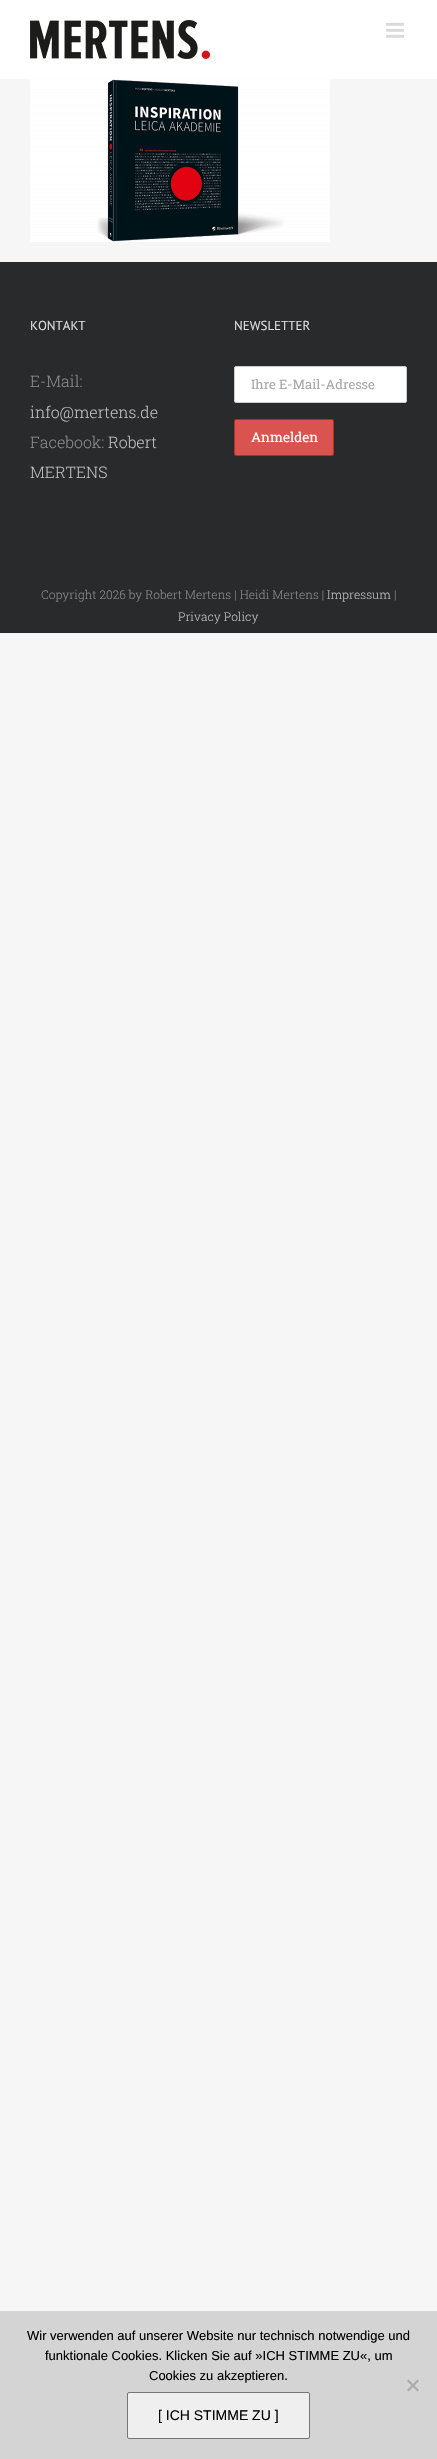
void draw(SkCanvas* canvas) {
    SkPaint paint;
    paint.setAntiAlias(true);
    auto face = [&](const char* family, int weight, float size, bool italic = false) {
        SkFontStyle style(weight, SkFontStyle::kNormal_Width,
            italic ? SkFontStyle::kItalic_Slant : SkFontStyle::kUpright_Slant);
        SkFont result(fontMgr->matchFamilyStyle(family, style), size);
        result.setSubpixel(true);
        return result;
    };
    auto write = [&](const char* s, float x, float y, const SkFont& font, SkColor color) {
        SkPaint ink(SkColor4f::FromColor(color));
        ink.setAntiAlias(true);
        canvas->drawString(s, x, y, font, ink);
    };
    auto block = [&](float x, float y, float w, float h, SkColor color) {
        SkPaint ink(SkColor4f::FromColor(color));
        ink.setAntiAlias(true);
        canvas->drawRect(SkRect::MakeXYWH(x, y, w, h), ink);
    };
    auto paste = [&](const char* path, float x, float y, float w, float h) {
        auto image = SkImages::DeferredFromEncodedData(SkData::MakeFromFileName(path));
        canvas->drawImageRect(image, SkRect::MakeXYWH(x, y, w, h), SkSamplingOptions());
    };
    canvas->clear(SkColorSetRGB(246, 246, 246));
    block(0, 0, 437, 79, SK_ColorWHITE);
    paste("pic1.png", 30, 20, 180, 39);
    paste("pic2.png", 386, 22, 18, 16);
    paste("pic3.png", 30, 79, 300, 163);
    block(0, 262, 437, 371, SkColorSetRGB(40, 42, 43));
    auto kFont1 = face("PT Sans", 400, 13);
    write("KONTAKT", 30, 330, kFont1, SkColorSetRGB(221, 221, 221));
    auto kFont2 = face("Roboto Slab", 300, 16);
    write("E-Mail:", 30, 387, kFont2, SkColorSetRGB(140, 137, 137));
    write("info@mertens.de", 30, 418, kFont2, SkColorSetRGB(191, 191, 191));
    write("Facebook:", 30, 448, kFont2, SkColorSetRGB(140, 137, 137));
    write("Robert", 108, 448, kFont2, SkColorSetRGB(191, 191, 191));
    write("MERTENS", 30, 478, kFont2, SkColorSetRGB(191, 191, 191));
    write("NEWSLETTER", 234, 330, kFont1, SkColorSetRGB(221, 221, 221));
    paint.setColor(SK_ColorWHITE);
    canvas->drawRoundRect(SkRect::MakeXYWH(234.5f, 366.5f, 172, 36), 1.5f, 1.5f, paint);
    paint.setStyle(SkPaint::kStroke_Style);
    paint.setStrokeWidth(1);
    paint.setColor(SkColorSetRGB(204, 204, 204));
    canvas->drawRoundRect(SkRect::MakeXYWH(234.5f, 366.5f, 172, 36), 1.5f, 1.5f, paint);
    auto kFont3 = face("Roboto Slab", 400, 13);
    write("Ihre E-Mail-Adresse", 251, 389, kFont3, SkColorSetRGB(170, 169, 169));
    paint.setStyle(SkPaint::kFill_Style);
    paint.setColor(SkColorSetRGB(217, 83, 79));
    canvas->drawRoundRect(SkRect::MakeXYWH(234.5f, 419.5f, 99, 36), 1.5f, 1.5f, paint);
    paint.setStyle(SkPaint::kStroke_Style);
    paint.setColor(SkColorSetRGB(181, 43, 39));
    canvas->drawRoundRect(SkRect::MakeXYWH(234.5f, 419.5f, 99, 36), 1.5f, 1.5f, paint);
    auto kFont4 = face("Roboto Slab", 400, 13.5f);
    write("Anmelden", 251, 442, kFont4, SK_ColorWHITE);
    auto kFont5 = face("Roboto Slab", 300, 12);
    write("Copyright 2026 by Robert Mertens | Heidi Mertens |", 41, 599, kFont5, SkColorSetRGB(140, 137, 137));
    write("Impressum", 327, 599, kFont5, SkColorSetRGB(191, 191, 191));
    write("|", 394, 599, kFont5, SkColorSetRGB(140, 137, 137));
    write("Privacy Policy", 178, 621, kFont5, SkColorSetRGB(191, 191, 191));
    block(0, 2311, 437, 148, SkColorSetRGB(212, 212, 212));
    auto kFont6 = face("Liberation Sans", 400, 13);
    write("Wir verwenden auf unserer Website nur technisch notwendige und", 27, 2340, kFont6, SK_ColorBLACK);
    write("funktionale Cookies. Klicken Sie auf »ICH STIMME ZU«, um", 45, 2360, kFont6, SK_ColorBLACK);
    write("Cookies zu akzeptieren.", 149, 2380, kFont6, SK_ColorBLACK);
    paint.setStyle(SkPaint::kFill_Style);
    paint.setColor(SkColorSetRGB(170, 170, 170));
    canvas->drawPath(SkPathBuilder().moveTo(417.5f, 2379.5f).lineTo(419, 2381).lineTo(408.5f, 2391.5f).lineTo(407, 2390).close().detach(), paint);
    canvas->drawPath(SkPathBuilder().moveTo(407, 2381).lineTo(408.5f, 2379.5f).lineTo(419, 2390).lineTo(417.5f, 2391.5f).close().detach(), paint);
    paint.setColor(SkColorSetRGB(239, 239, 239));
    canvas->drawRoundRect(SkRect::MakeXYWH(127.5f, 2392.5f, 182, 46), 1.5f, 1.5f, paint);
    paint.setStyle(SkPaint::kStroke_Style);
    paint.setColor(SkColorSetRGB(118, 118, 118));
    canvas->drawRoundRect(SkRect::MakeXYWH(127.5f, 2392.5f, 182, 46), 1.5f, 1.5f, paint);
    auto kFont7 = face("Liberation Sans", 400, 14);
    write("[ ICH STIMME ZU ]", 158, 2420, kFont7, SK_ColorBLACK);
}
